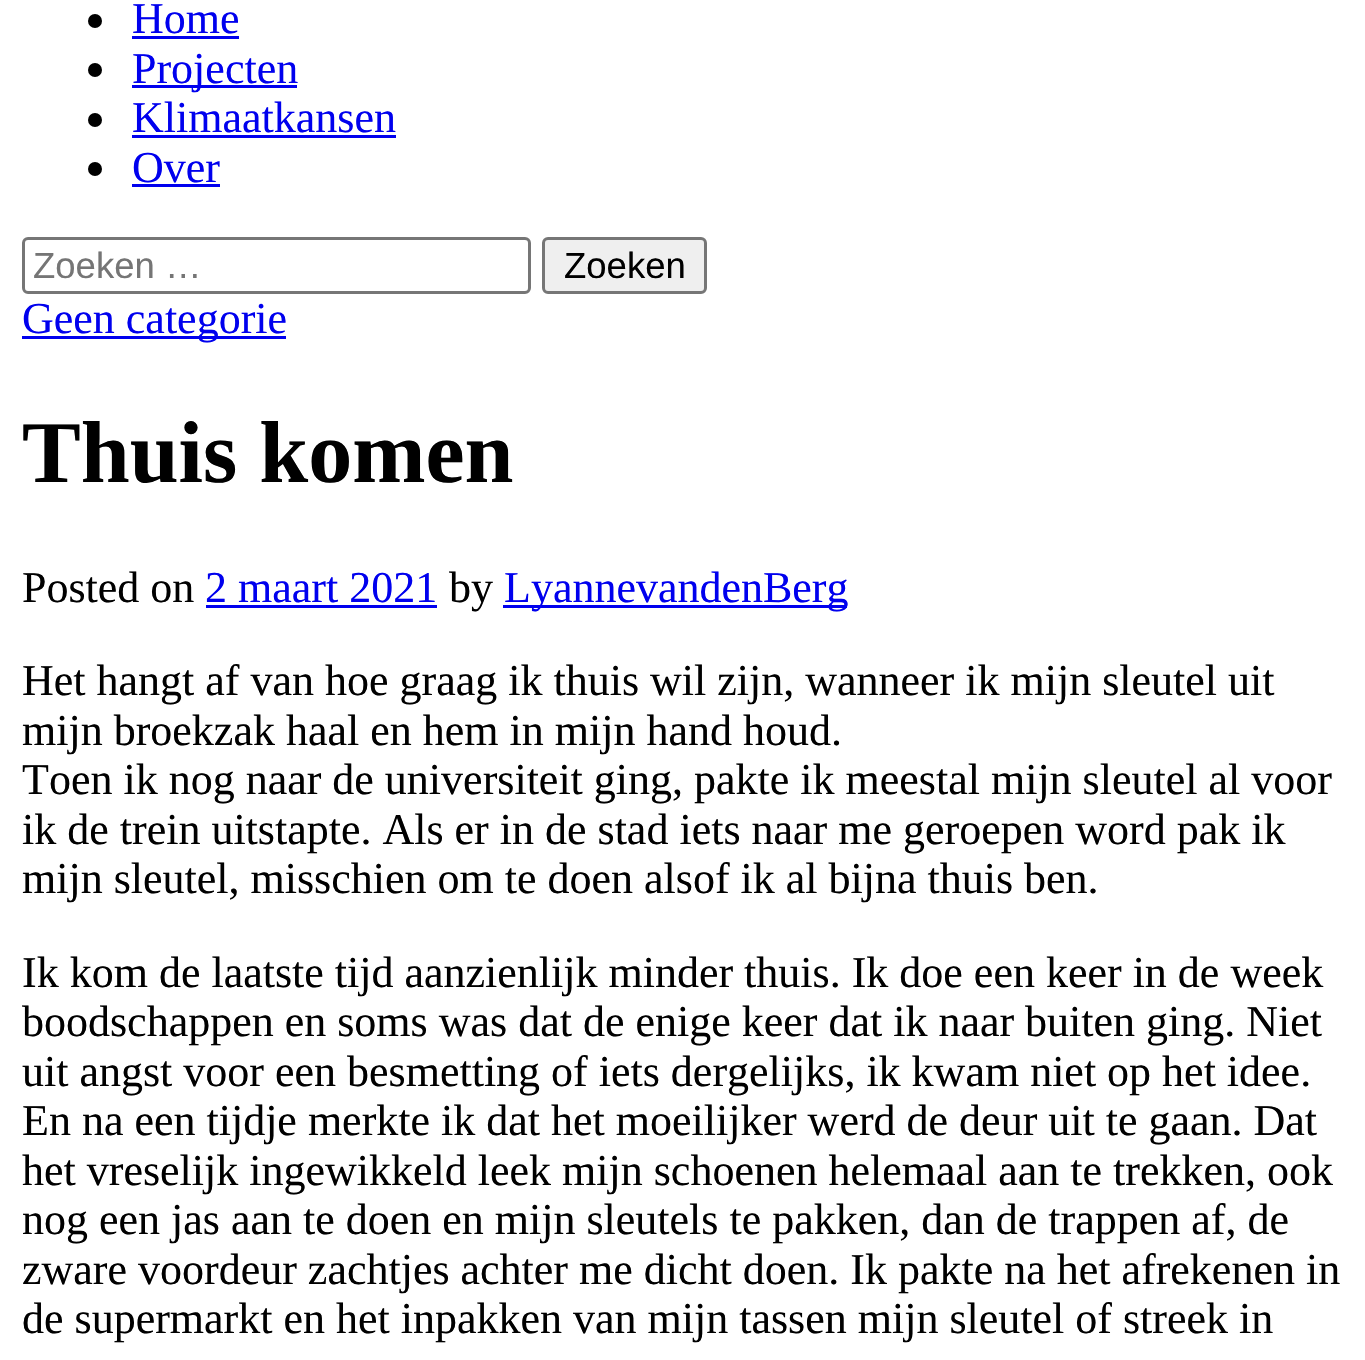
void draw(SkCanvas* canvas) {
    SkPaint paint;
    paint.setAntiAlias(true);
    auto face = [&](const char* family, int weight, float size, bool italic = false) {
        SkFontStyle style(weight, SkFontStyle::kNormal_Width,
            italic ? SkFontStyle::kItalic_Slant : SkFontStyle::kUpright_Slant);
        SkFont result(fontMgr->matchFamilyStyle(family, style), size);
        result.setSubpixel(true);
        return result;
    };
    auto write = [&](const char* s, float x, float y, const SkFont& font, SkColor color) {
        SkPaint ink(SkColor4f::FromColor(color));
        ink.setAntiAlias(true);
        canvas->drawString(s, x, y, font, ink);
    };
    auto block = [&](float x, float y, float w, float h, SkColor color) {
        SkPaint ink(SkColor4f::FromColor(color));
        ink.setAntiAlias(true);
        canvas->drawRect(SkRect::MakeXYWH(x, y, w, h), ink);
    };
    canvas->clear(SK_ColorWHITE);
    paint.setColor(SK_ColorBLACK);
    canvas->drawCircle(95, 21, 7, paint);
    auto kFont1 = face("Liberation Serif", 400, 44);
    write("Home", 132, 33, kFont1, SkColorSetRGB(0, 0, 238));
    block(132, 36, 107, 3, SkColorSetRGB(0, 0, 238));
    canvas->drawCircle(95, 70, 7, paint);
    block(132, 85, 165, 3, SkColorSetRGB(0, 0, 238));
    write("Projecten", 132, 83, kFont1, SkColorSetRGB(0, 0, 238));
    canvas->drawCircle(95, 120, 7, paint);
    write("Klimaatkansen", 132, 132, kFont1, SkColorSetRGB(0, 0, 238));
    block(132, 135, 264, 3, SkColorSetRGB(0, 0, 238));
    canvas->drawCircle(95, 169, 7, paint);
    write("Over", 132, 182, kFont1, SkColorSetRGB(0, 0, 238));
    block(132, 184, 88, 3, SkColorSetRGB(0, 0, 238));
    paint.setStyle(SkPaint::kStroke_Style);
    paint.setStrokeWidth(3);
    paint.setColor(SkColorSetRGB(118, 118, 118));
    canvas->drawRoundRect(SkRect::MakeXYWH(23.5f, 238.5f, 506, 54), 4.5f, 4.5f, paint);
    auto kFont2 = face("Liberation Sans", 400, 36.5f);
    write("Zoeken …", 33, 278, kFont2, SkColorSetRGB(117, 117, 117));
    paint.setStyle(SkPaint::kFill_Style);
    paint.setColor(SkColorSetRGB(239, 239, 239));
    canvas->drawRoundRect(SkRect::MakeXYWH(543.5f, 238.5f, 162, 54), 4.5f, 4.5f, paint);
    paint.setStyle(SkPaint::kStroke_Style);
    paint.setColor(SkColorSetRGB(118, 118, 118));
    canvas->drawRoundRect(SkRect::MakeXYWH(543.5f, 238.5f, 162, 54), 4.5f, 4.5f, paint);
    write("Zoeken", 564, 278, kFont2, SK_ColorBLACK);
    block(22, 336, 264, 3, SkColorSetRGB(0, 0, 238));
    write("Geen categorie", 22, 333, kFont1, SkColorSetRGB(0, 0, 238));
    auto kFont3 = face("Liberation Serif", 700, 88);
    write("Thuis komen", 22, 482, kFont3, SK_ColorBLACK);
    write("Posted on", 22, 602, kFont1, SK_ColorBLACK);
    write("2 maart 2021", 205, 602, kFont1, SkColorSetRGB(0, 0, 238));
    block(206, 605, 231, 3, SkColorSetRGB(0, 0, 238));
    write("by", 449, 602, kFont1, SK_ColorBLACK);
    block(503, 605, 344, 3, SkColorSetRGB(0, 0, 238));
    write("LyannevandenBerg", 504, 602, kFont1, SkColorSetRGB(0, 0, 238));
    write("Het hangt af van hoe graag ik thuis wil zijn, wanneer ik mijn sleutel uit", 22, 695, kFont1, SK_ColorBLACK);
    write("mijn broekzak haal en hem in mijn hand houd.", 22, 745, kFont1, SK_ColorBLACK);
    write("Toen ik nog naar de universiteit ging, pakte ik meestal mijn sleutel al voor", 22, 794, kFont1, SK_ColorBLACK);
    write("ik de trein uitstapte. Als er in de stad iets naar me geroepen word pak ik", 22, 844, kFont1, SK_ColorBLACK);
    write("mijn sleutel, misschien om te doen alsof ik al bijna thuis ben.", 22, 893, kFont1, SK_ColorBLACK);
    write("Ik kom de laatste tijd aanzienlijk minder thuis. Ik doe een keer in de week", 22, 987, kFont1, SK_ColorBLACK);
    write("boodschappen en soms was dat de enige keer dat ik naar buiten ging. Niet", 22, 1036, kFont1, SK_ColorBLACK);
    write("uit angst voor een besmetting of iets dergelijks, ik kwam niet op het idee.", 22, 1086, kFont1, SK_ColorBLACK);
    write("En na een tijdje merkte ik dat het moeilijker werd de deur uit te gaan. Dat", 22, 1135, kFont1, SK_ColorBLACK);
    write("het vreselijk ingewikkeld leek mijn schoenen helemaal aan te trekken, ook", 22, 1185, kFont1, SK_ColorBLACK);
    write("nog een jas aan te doen en mijn sleutels te pakken, dan de trappen af, de", 22, 1234, kFont1, SK_ColorBLACK);
    write("zware voordeur zachtjes achter me dicht doen. Ik pakte na het afrekenen in", 22, 1284, kFont1, SK_ColorBLACK);
    write("de supermarkt en het inpakken van mijn tassen mijn sleutel of streek in", 22, 1333, kFont1, SK_ColorBLACK);
}
